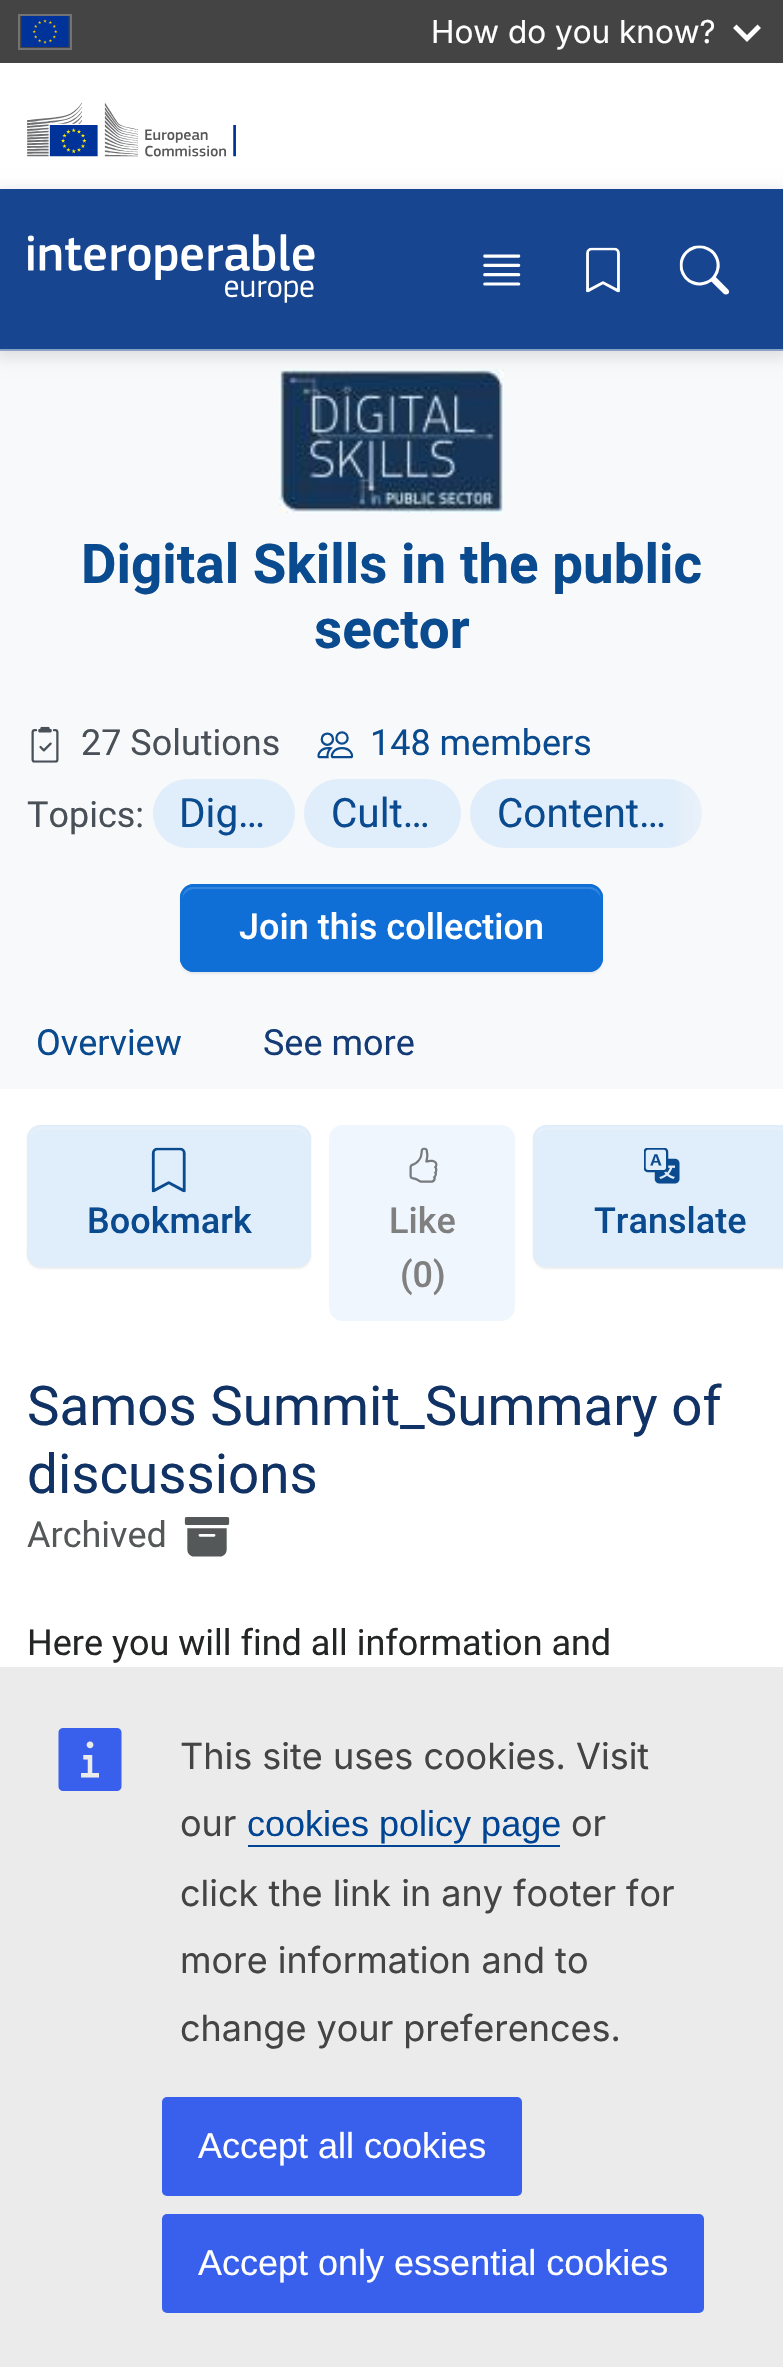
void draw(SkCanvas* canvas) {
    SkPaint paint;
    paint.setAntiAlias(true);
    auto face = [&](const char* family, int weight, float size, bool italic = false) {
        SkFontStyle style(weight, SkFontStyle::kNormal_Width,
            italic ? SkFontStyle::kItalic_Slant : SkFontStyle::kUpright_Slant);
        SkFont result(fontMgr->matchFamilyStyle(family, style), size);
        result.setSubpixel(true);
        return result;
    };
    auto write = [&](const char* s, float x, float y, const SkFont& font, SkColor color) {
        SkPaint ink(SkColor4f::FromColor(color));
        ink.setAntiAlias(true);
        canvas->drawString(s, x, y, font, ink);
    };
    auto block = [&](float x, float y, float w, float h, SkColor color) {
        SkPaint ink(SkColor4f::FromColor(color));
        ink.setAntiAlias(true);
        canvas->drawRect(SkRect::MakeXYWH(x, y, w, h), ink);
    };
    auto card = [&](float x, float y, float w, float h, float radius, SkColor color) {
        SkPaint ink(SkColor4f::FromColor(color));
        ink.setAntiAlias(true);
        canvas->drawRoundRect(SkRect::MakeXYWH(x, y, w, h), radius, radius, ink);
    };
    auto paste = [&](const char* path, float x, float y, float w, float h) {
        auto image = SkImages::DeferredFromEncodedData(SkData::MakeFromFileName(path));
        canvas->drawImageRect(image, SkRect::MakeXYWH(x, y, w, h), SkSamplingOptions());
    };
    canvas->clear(SK_ColorWHITE);
    block(0, 0, 783, 63, SkColorSetRGB(68, 68, 68));
    paint.setStyle(SkPaint::kStroke_Style);
    paint.setStrokeWidth(2);
    paint.setColor(SkColorSetRGB(115, 115, 115));
    canvas->drawRect(SkRect::MakeXYWH(19, 15, 52, 34), paint);
    paste("pic1.png", 21, 16, 48, 31);
    auto kFont1 = face("Inter", 400, 31.5f);
    write("How do you know?", 431, 43, kFont1, SK_ColorWHITE);
    paint.setStrokeWidth(2.8f);
    paint.setColor(SK_ColorWHITE);
    canvas->drawPath(SkPathBuilder().moveTo(735, 28).lineTo(736.5f, 26.5f).lineTo(747, 37).lineTo(757.5f, 26.5f).lineTo(759, 28).lineTo(747, 40).close().detach(), paint);
    paste("pic2.png", 27, 102, 209, 55);
    block(0, 351, 783, 738, SkColorSetRGB(248, 249, 250));
    paste("pic7.png", 279, 369, 225, 144);
    paint.setStyle(SkPaint::kFill_Style);
    paint.setColor(SkColorSetARGB(26, 0, 0, 0));
    paint.setMaskFilter(SkMaskFilter::MakeBlur(kNormal_SkBlurStyle, 7));
    canvas->drawRect(SkRect::MakeXYWH(-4, 189, 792, 169), paint);
    paint.setMaskFilter(nullptr);
    block(0, 189, 783, 160, SkColorSetRGB(23, 69, 143));
    block(0, 349, 783, 2, SkColorSetRGB(139, 162, 199));
    paste("pic3.png", 27, 234, 288, 69);
    paste("pic4.png", 483, 254, 38, 32);
    paste("pic5.png", 586, 247, 34, 46);
    paste("pic6.png", 679, 245, 50, 50);
    auto kFont2 = face("Roboto", 700, 54.75f);
    write("Digital Skills in the public", 81, 583, kFont2, SkColorSetRGB(10, 74, 143));
    write("sector", 314, 648, kFont2, SkColorSetRGB(10, 74, 143));
    paste("pic8.png", 31, 726, 28, 37);
    auto kFont3 = face("Roboto", 400, 36);
    write("27 Solutions", 81, 755, kFont3, SkColorSetRGB(73, 80, 87));
    paste("pic9.png", 317, 731, 37, 28);
    write("148 members", 370, 755, kFont3, SkColorSetRGB(10, 74, 143));
    write("Topics:", 27, 827, kFont3, SkColorSetRGB(73, 80, 87));
    card(153, 779, 142, 69, 34.5f, SkColorSetRGB(224, 237, 250));
    auto kFont4 = face("Roboto", 400, 40.5f);
    write("Dig…", 179, 827, kFont4, SkColorSetRGB(10, 74, 143));
    card(304, 779, 157, 69, 34.5f, SkColorSetRGB(224, 237, 250));
    write("Cult…", 331, 827, kFont4, SkColorSetRGB(10, 74, 143));
    card(470, 779, 232, 69, 34.5f, SkColorSetRGB(224, 237, 250));
    write("Content…", 497, 827, kFont4, SkColorSetRGB(10, 74, 143));
    {
        const SkColor colors[] = {SkColorSetARGB(0, 248, 249, 250), SkColorSetRGB(248, 249, 250)};
        const float stops[] = {0.5f, 1};
        const SkPoint ends[] = {{576, 813}, {756, 813}};
        paint.setShader(SkGradientShader::MakeLinear(ends, colors, stops, 2, SkTileMode::kClamp));
        paint.setAlpha(255);
    }
    canvas->drawRect(SkRect::MakeXYWH(676, 781, 26, 65), paint);
    paint.setShader(nullptr);
    paint.setColor(SkColorSetARGB(18, 0, 0, 0));
    paint.setMaskFilter(SkMaskFilter::MakeBlur(kNormal_SkBlurStyle, 1));
    canvas->drawRoundRect(SkRect::MakeXYWH(180, 887, 423, 87), 14, 14, paint);
    paint.setMaskFilter(nullptr);
    card(180, 884, 423, 88, 14, SkColorSetRGB(15, 111, 215));
    paint.setColor(SkColorSetRGB(51, 133, 221));
    canvas->drawPath(SkPathBuilder().moveTo(194, 889).lineTo(589, 889).cubicTo(595, 889, 601, 894, 601, 901).cubicTo(601, 895, 599, 889, 592, 887).lineTo(193, 887).cubicTo(185, 887, 182, 894, 182, 901).cubicTo(182, 894, 188, 889, 194, 889).close().detach(), paint);
    paint.setStyle(SkPaint::kStroke_Style);
    paint.setStrokeWidth(2);
    paint.setColor(SkColorSetRGB(15, 111, 215));
    canvas->drawRoundRect(SkRect::MakeXYWH(181, 885, 421, 86), 13, 13, paint);
    auto kFont5 = face("Roboto", 500, 36);
    write("Join this collection", 239, 939, kFont5, SK_ColorWHITE);
    write("Overview", 36, 1055, kFont3, SkColorSetRGB(10, 74, 143));
    write("See more", 263, 1055, kFont3, SkColorSetRGB(20, 59, 118));
    paint.setStyle(SkPaint::kFill_Style);
    paint.setColor(SkColorSetARGB(18, 0, 0, 0));
    paint.setMaskFilter(SkMaskFilter::MakeBlur(kNormal_SkBlurStyle, 1));
    canvas->drawRoundRect(SkRect::MakeXYWH(27, 1127, 284, 142), 14, 14, paint);
    paint.setMaskFilter(nullptr);
    card(27, 1125, 284, 142, 14, SkColorSetRGB(224, 237, 250));
    paint.setColor(SkColorSetRGB(229, 240, 251));
    canvas->drawPath(SkPathBuilder().moveTo(41, 1130).lineTo(296, 1130).cubicTo(303, 1130, 308, 1135, 308, 1142).lineTo(308, 1138).cubicTo(308, 1132, 303, 1127, 297, 1127).lineTo(40, 1127).cubicTo(34, 1127, 29, 1132, 29, 1138).lineTo(29, 1142).cubicTo(29, 1135, 35, 1130, 41, 1130).close().detach(), paint);
    paint.setStyle(SkPaint::kStroke_Style);
    paint.setColor(SkColorSetRGB(224, 237, 250));
    canvas->drawRoundRect(SkRect::MakeXYWH(28, 1126, 282, 140), 13, 13, paint);
    paste("pic10.png", 151, 1147, 35, 46);
    write("Bookmark", 87, 1233, kFont5, SkColorSetRGB(10, 74, 143));
    paint.setStyle(SkPaint::kFill_Style);
    paint.setColor(SkColorSetRGB(240, 246, 253));
    canvas->drawRoundRect(SkRect::MakeXYWH(330, 1126, 184, 194), 13, 13, paint);
    paint.setStyle(SkPaint::kStroke_Style);
    canvas->drawRoundRect(SkRect::MakeXYWH(330, 1126, 184, 194), 13, 13, paint);
    paste("pic11.png", 409, 1147, 29, 36);
    write("Like", 389, 1233, kFont5, SkColorSetRGB(128, 128, 128));
    write("(0)", 400, 1287, kFont5, SkColorSetRGB(128, 128, 128));
    paint.setStyle(SkPaint::kFill_Style);
    paint.setColor(SkColorSetARGB(18, 0, 0, 0));
    paint.setMaskFilter(SkMaskFilter::MakeBlur(kNormal_SkBlurStyle, 1));
    canvas->drawRoundRect(SkRect::MakeXYWH(533, 1127, 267, 142), 14, 14, paint);
    paint.setMaskFilter(nullptr);
    card(533, 1125, 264, 142, 14, SkColorSetRGB(224, 237, 250));
    paint.setColor(SkColorSetRGB(229, 240, 251));
    canvas->drawPath(SkPathBuilder().moveTo(548, 1130).lineTo(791, 1130).cubicTo(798, 1130, 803, 1135, 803, 1142).lineTo(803, 1138).cubicTo(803, 1132, 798, 1127, 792, 1127).lineTo(547, 1127).cubicTo(541, 1127, 536, 1132, 536, 1138).lineTo(536, 1142).cubicTo(536, 1135, 541, 1130, 548, 1130).close().detach(), paint);
    paint.setStyle(SkPaint::kStroke_Style);
    paint.setColor(SkColorSetRGB(224, 237, 250));
    canvas->drawRoundRect(SkRect::MakeXYWH(534, 1126, 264, 140), 13, 13, paint);
    paste("pic12.png", 644, 1148, 36, 36);
    write("Translate", 594, 1233, kFont5, SkColorSetRGB(10, 74, 143));
    auto kFont6 = face("Roboto", 400, 54.75f);
    write("Samos Summit_Summary of", 27, 1425, kFont6, SkColorSetRGB(17, 50, 100));
    write("discussions", 27, 1493, kFont6, SkColorSetRGB(17, 50, 100));
    write("Archived", 27, 1547, kFont3, SkColorSetRGB(85, 88, 89));
    paste("pic13.png", 184, 1517, 46, 40);
    write("Here you will find all information and", 27, 1655, kFont3, SkColorSetRGB(36, 38, 38));
    block(0, 1667, 783, 700, SkColorSetRGB(235, 235, 235));
    paste("pic14.png", 58, 1728, 64, 63);
    auto kFont7 = face("Inter", 400, 36);
    write("This site uses cookies. Visit", 180, 1769, kFont7, SkColorSetRGB(68, 68, 68));
    write("our", 180, 1836, kFont7, SkColorSetRGB(68, 68, 68));
    auto kFont8 = face("Liberation Sans", 400, 36);
    write("cookies policy page", 247, 1836, kFont8, SkColorSetRGB(0, 68, 148));
    block(248, 1845, 312, 2, SkColorSetRGB(0, 68, 148));
    write("or", 571, 1836, kFont7, SkColorSetRGB(68, 68, 68));
    write("click the link in any footer for", 180, 1906, kFont7, SkColorSetRGB(68, 68, 68));
    write("more information and to", 180, 1973, kFont7, SkColorSetRGB(68, 68, 68));
    write("change your preferences.", 180, 2041, kFont7, SkColorSetRGB(68, 68, 68));
    card(162, 2097, 360, 99, 5, SkColorSetRGB(56, 96, 237));
    write("Accept all cookies", 198, 2158, kFont8, SK_ColorWHITE);
    card(162, 2214, 542, 99, 5, SkColorSetRGB(56, 96, 237));
    write("Accept only essential cookies", 198, 2275, kFont8, SK_ColorWHITE);
}
